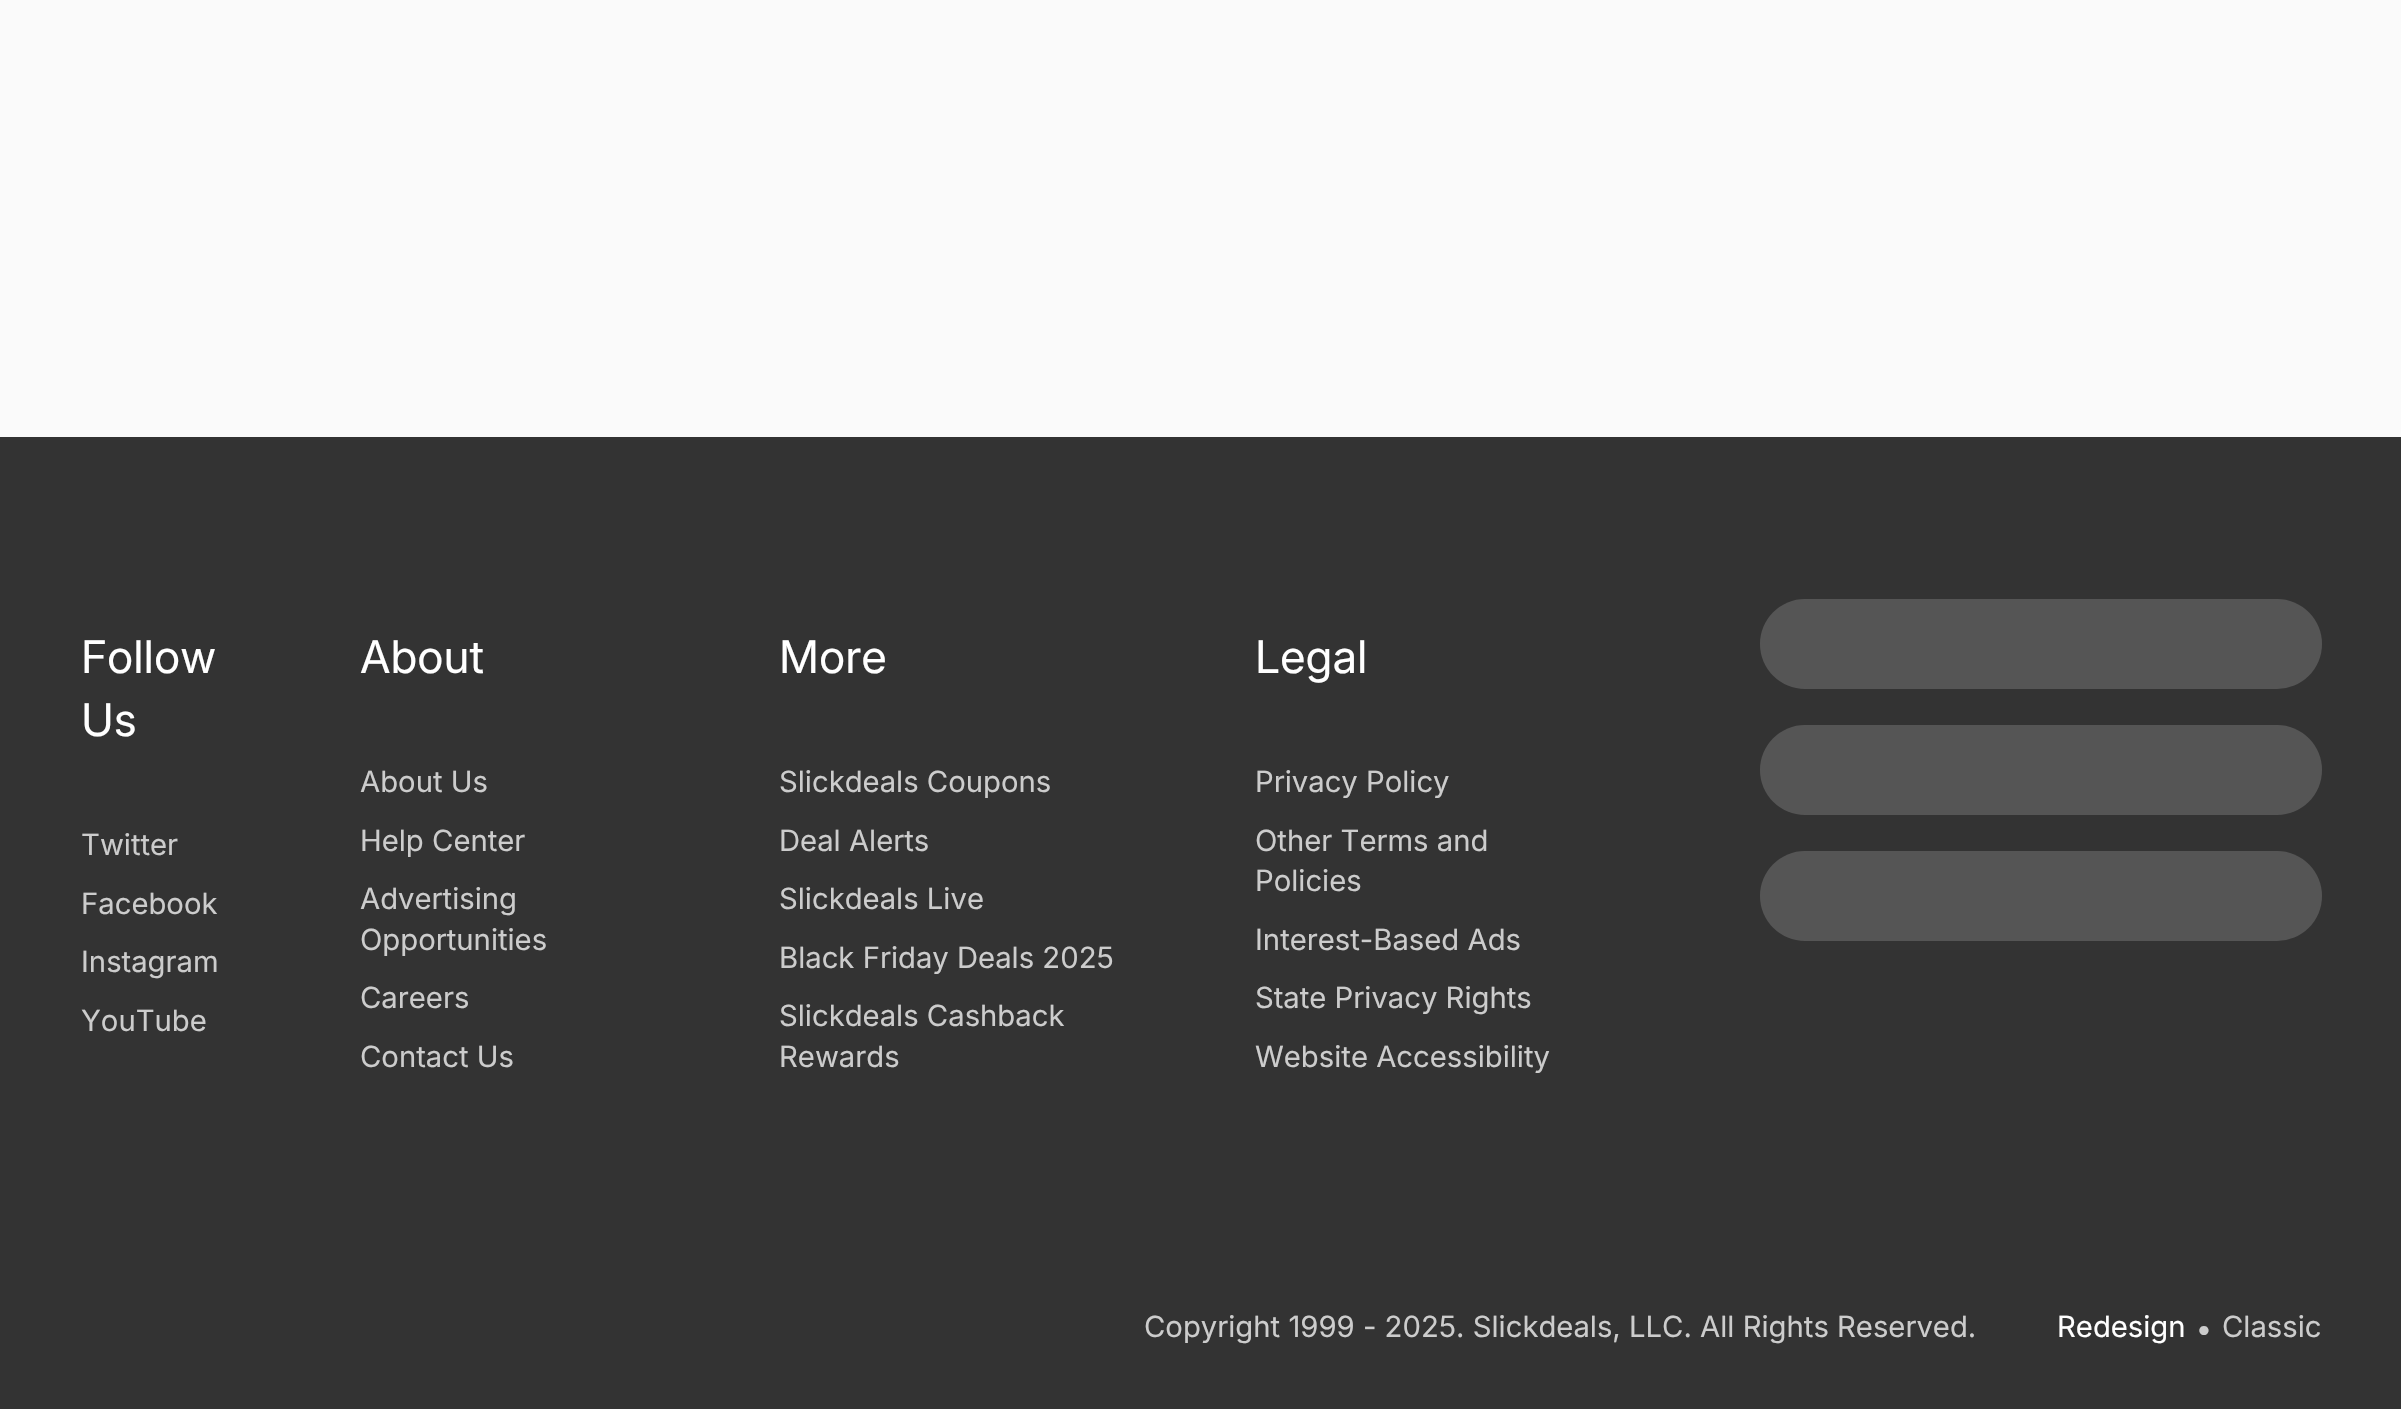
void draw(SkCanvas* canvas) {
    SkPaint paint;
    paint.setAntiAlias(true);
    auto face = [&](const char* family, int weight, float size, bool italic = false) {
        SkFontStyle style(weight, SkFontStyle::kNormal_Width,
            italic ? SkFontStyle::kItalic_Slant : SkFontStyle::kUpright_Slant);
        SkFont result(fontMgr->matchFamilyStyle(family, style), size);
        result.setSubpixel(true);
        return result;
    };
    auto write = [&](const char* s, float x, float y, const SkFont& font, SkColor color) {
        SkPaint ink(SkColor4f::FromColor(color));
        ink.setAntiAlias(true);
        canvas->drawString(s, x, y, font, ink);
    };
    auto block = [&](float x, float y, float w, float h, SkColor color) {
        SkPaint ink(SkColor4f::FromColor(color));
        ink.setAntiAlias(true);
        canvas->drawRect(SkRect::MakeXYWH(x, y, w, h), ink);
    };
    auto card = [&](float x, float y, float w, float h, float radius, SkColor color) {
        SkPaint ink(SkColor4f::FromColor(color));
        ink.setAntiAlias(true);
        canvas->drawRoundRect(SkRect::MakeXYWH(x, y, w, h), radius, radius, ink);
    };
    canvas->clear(SkColorSetRGB(250, 250, 250));
    block(0, 437, 2401, 972, SkColorSetRGB(51, 51, 51));
    auto kFont1 = face("Inter", 400, 45);
    write("Follow", 81, 673, kFont1, SK_ColorWHITE);
    write("Us", 81, 736, kFont1, SK_ColorWHITE);
    auto kFont2 = face("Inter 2", 400, 29.25f);
    write("Twitter", 81, 855, kFont2, SkColorSetRGB(204, 204, 204));
    write("Facebook", 81, 914, kFont2, SkColorSetRGB(204, 204, 204));
    write("Instagram", 81, 972, kFont2, SkColorSetRGB(204, 204, 204));
    write("YouTube", 81, 1031, kFont2, SkColorSetRGB(204, 204, 204));
    write("About", 360, 673, kFont1, SK_ColorWHITE);
    write("About Us", 360, 792, kFont2, SkColorSetRGB(204, 204, 204));
    write("Help Center", 360, 851, kFont2, SkColorSetRGB(204, 204, 204));
    write("Advertising", 360, 909, kFont2, SkColorSetRGB(204, 204, 204));
    write("Opportunities", 360, 950, kFont2, SkColorSetRGB(204, 204, 204));
    write("Careers", 360, 1008, kFont2, SkColorSetRGB(204, 204, 204));
    write("Contact Us", 360, 1067, kFont2, SkColorSetRGB(204, 204, 204));
    write("More", 779, 673, kFont1, SK_ColorWHITE);
    write("Slickdeals Coupons", 779, 792, kFont2, SkColorSetRGB(204, 204, 204));
    write("Deal Alerts", 779, 851, kFont2, SkColorSetRGB(204, 204, 204));
    write("Slickdeals Live", 779, 909, kFont2, SkColorSetRGB(204, 204, 204));
    write("Black Friday Deals 2025", 779, 968, kFont2, SkColorSetRGB(204, 204, 204));
    write("Slickdeals Cashback", 779, 1026, kFont2, SkColorSetRGB(204, 204, 204));
    write("Rewards", 779, 1067, kFont2, SkColorSetRGB(204, 204, 204));
    write("Legal", 1255, 673, kFont1, SK_ColorWHITE);
    write("Privacy Policy", 1255, 792, kFont2, SkColorSetRGB(204, 204, 204));
    write("Other Terms and", 1255, 851, kFont2, SkColorSetRGB(204, 204, 204));
    write("Policies", 1255, 891, kFont2, SkColorSetRGB(204, 204, 204));
    write("Interest-Based Ads", 1255, 950, kFont2, SkColorSetRGB(204, 204, 204));
    write("State Privacy Rights", 1255, 1008, kFont2, SkColorSetRGB(204, 204, 204));
    write("Website Accessibility", 1255, 1067, kFont2, SkColorSetRGB(204, 204, 204));
    card(1760, 599, 562, 90, 45, SkColorSetRGB(85, 85, 85));
    card(1760, 725, 562, 90, 45, SkColorSetRGB(85, 85, 85));
    card(1760, 851, 562, 90, 45, SkColorSetRGB(85, 85, 85));
    write("Copyright 1999 - 2025. Slickdeals, LLC. All Rights Reserved.", 1144, 1337, kFont2, SkColorSetRGB(204, 204, 204));
    write("Redesign", 2057, 1337, kFont2, SK_ColorWHITE);
    auto kFont3 = face("Inter", 700, 29.25f);
    write("•", 2197, 1339, kFont3, SkColorSetRGB(204, 204, 204));
    write("Classic", 2222, 1337, kFont2, SkColorSetRGB(204, 204, 204));
}
